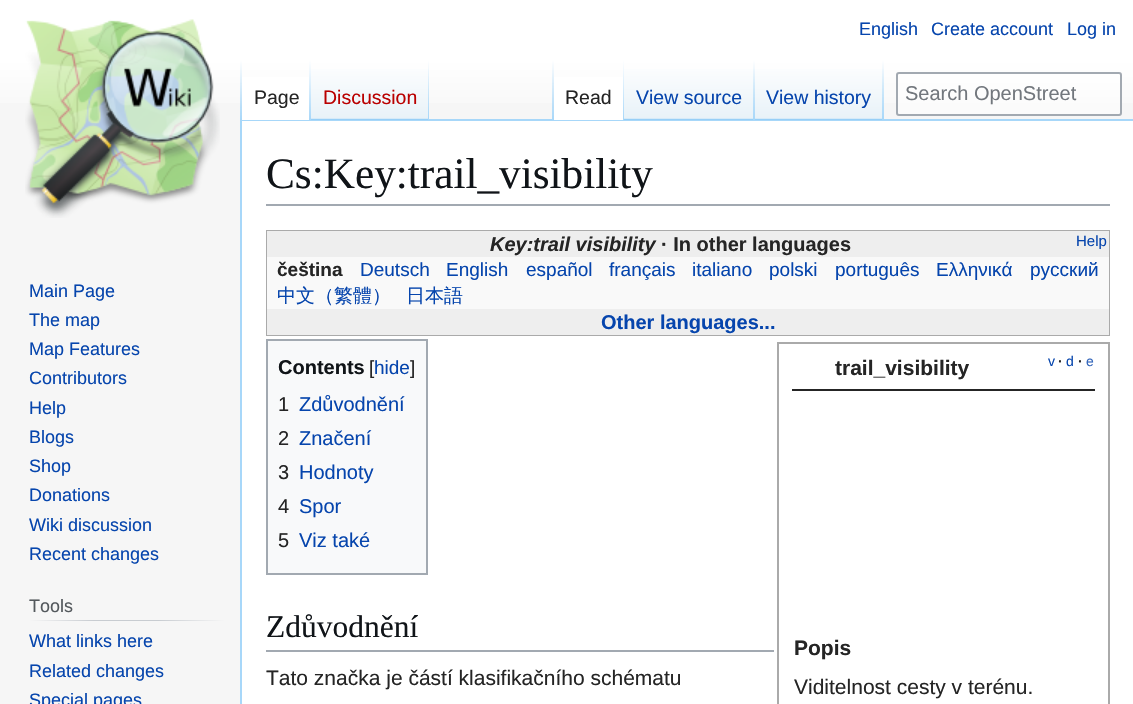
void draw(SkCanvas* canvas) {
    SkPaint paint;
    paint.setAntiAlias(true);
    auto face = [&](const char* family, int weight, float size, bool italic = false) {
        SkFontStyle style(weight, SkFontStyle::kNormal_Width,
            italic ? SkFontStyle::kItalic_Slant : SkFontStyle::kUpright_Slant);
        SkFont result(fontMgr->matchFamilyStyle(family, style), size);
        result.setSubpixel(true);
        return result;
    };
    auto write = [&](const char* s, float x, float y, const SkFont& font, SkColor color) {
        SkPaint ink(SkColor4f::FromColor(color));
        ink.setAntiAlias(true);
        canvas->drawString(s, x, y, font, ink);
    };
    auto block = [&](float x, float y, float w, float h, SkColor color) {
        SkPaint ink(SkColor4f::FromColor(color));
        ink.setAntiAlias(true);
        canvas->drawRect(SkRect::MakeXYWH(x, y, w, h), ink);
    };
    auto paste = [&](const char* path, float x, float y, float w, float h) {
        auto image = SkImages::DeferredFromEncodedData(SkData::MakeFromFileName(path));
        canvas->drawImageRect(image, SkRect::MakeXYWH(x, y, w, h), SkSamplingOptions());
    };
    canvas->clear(SkColorSetRGB(246, 246, 246));
    {
        const SkColor colors[] = {SK_ColorWHITE, SkColorSetRGB(246, 246, 246)};
        const float stops[] = {0.5f, 1};
        const SkPoint ends[] = {{567, 0}, {567, 120}};
        paint.setShader(SkGradientShader::MakeLinear(ends, colors, stops, 2, SkTileMode::kClamp));
        paint.setAlpha(255);
    }
    canvas->drawRect(SkRect::MakeXYWH(0, 0, 1133, 103), paint);
    auto kFont1 = face("Liberation Sans", 400, 18);
    write("English", 859, 35, kFont1, SkColorSetRGB(6, 69, 173));
    write("Create account", 931, 35, kFont1, SkColorSetRGB(6, 69, 173));
    write("Log in", 1067, 35, kFont1, SkColorSetRGB(6, 69, 173));
    block(240, 119, 893, 2, SkColorSetRGB(167, 215, 249));
    block(240, 119, 2, 585, SkColorSetRGB(167, 215, 249));
    {
        const SkColor colors[] = {SkColorSetARGB(0, 167, 215, 249), SkColorSetRGB(167, 215, 249)};
        const float stops[] = {0, 1};
        const SkPoint ends[] = {{241, 60}, {241, 120}};
        paint.setShader(SkGradientShader::MakeLinear(ends, colors, stops, 2, SkTileMode::kClamp));
        paint.setAlpha(255);
    }
    canvas->drawRect(SkRect::MakeXYWH(240, 60, 2, 60), paint);
    block(242, 77, 67, 43, SK_ColorWHITE);
    {
        const SkColor colors[] = {SK_ColorWHITE, SkColorSetRGB(167, 215, 249)};
        const float stops[] = {0, 1};
        const SkPoint ends[] = {{310, 60}, {310, 120}};
        paint.setShader(SkGradientShader::MakeLinear(ends, colors, stops, 2, SkTileMode::kClamp));
        paint.setAlpha(255);
    }
    canvas->drawRect(SkRect::MakeXYWH(309, 60, 2, 60), paint);
    auto kFont2 = face("Liberation Sans", 400, 19.5f);
    write("Page", 254, 104, kFont2, SkColorSetRGB(37, 37, 37));
    {
        const SkColor colors[] = {SkColorSetRGB(119, 193, 246), SkColorSetRGB(232, 242, 248), SK_ColorWHITE};
        const float stops[] = {0, 0.03f, 1};
        const SkPoint ends[] = {{370, 120}, {370, 60}};
        paint.setShader(SkGradientShader::MakeLinear(ends, colors, stops, 3, SkTileMode::kClamp));
        paint.setAlpha(255);
    }
    canvas->drawRect(SkRect::MakeXYWH(311, 69, 118, 51), paint);
    {
        const SkColor colors[] = {SkColorSetARGB(0, 167, 215, 249), SkColorSetRGB(167, 215, 249)};
        const float stops[] = {0, 1};
        const SkPoint ends[] = {{428, 60}, {428, 120}};
        paint.setShader(SkGradientShader::MakeLinear(ends, colors, stops, 2, SkTileMode::kClamp));
        paint.setAlpha(255);
    }
    canvas->drawRect(SkRect::MakeXYWH(428, 60, 1, 60), paint);
    write("Discussion", 323, 104, kFont2, SkColorSetRGB(186, 0, 0));
    {
        const SkColor colors[] = {SkColorSetARGB(0, 167, 215, 249), SkColorSetRGB(167, 215, 249)};
        const float stops[] = {0, 1};
        const SkPoint ends[] = {{553, 60}, {553, 120}};
        paint.setShader(SkGradientShader::MakeLinear(ends, colors, stops, 2, SkTileMode::kClamp));
        paint.setAlpha(255);
    }
    canvas->drawRect(SkRect::MakeXYWH(552, 60, 2, 60), paint);
    block(554, 77, 69, 43, SK_ColorWHITE);
    {
        const SkColor colors[] = {SK_ColorWHITE, SkColorSetRGB(167, 215, 249)};
        const float stops[] = {0, 1};
        const SkPoint ends[] = {{623, 60}, {623, 120}};
        paint.setShader(SkGradientShader::MakeLinear(ends, colors, stops, 2, SkTileMode::kClamp));
        paint.setAlpha(255);
    }
    canvas->drawRect(SkRect::MakeXYWH(623, 60, 1, 60), paint);
    write("Read", 565, 104, kFont2, SkColorSetRGB(37, 37, 37));
    {
        const SkColor colors[] = {SkColorSetRGB(119, 193, 246), SkColorSetRGB(232, 242, 248), SK_ColorWHITE};
        const float stops[] = {0, 0.03f, 1};
        const SkPoint ends[] = {{689, 120}, {689, 60}};
        paint.setShader(SkGradientShader::MakeLinear(ends, colors, stops, 3, SkTileMode::kClamp));
        paint.setAlpha(255);
    }
    canvas->drawRect(SkRect::MakeXYWH(624, 69, 131, 51), paint);
    {
        const SkColor colors[] = {SkColorSetARGB(0, 167, 215, 249), SkColorSetRGB(167, 215, 249)};
        const float stops[] = {0, 1};
        const SkPoint ends[] = {{754, 60}, {754, 120}};
        paint.setShader(SkGradientShader::MakeLinear(ends, colors, stops, 2, SkTileMode::kClamp));
        paint.setAlpha(255);
    }
    canvas->drawRect(SkRect::MakeXYWH(753, 60, 2, 60), paint);
    write("View source", 636, 104, kFont2, SkColorSetRGB(6, 69, 173));
    {
        const SkColor colors[] = {SkColorSetRGB(119, 193, 246), SkColorSetRGB(232, 242, 248), SK_ColorWHITE};
        const float stops[] = {0, 0.03f, 1};
        const SkPoint ends[] = {{819, 120}, {819, 60}};
        paint.setShader(SkGradientShader::MakeLinear(ends, colors, stops, 3, SkTileMode::kClamp));
        paint.setAlpha(255);
    }
    canvas->drawRect(SkRect::MakeXYWH(755, 69, 129, 51), paint);
    {
        const SkColor colors[] = {SkColorSetARGB(0, 167, 215, 249), SkColorSetRGB(167, 215, 249)};
        const float stops[] = {0, 1};
        const SkPoint ends[] = {{883, 60}, {883, 120}};
        paint.setShader(SkGradientShader::MakeLinear(ends, colors, stops, 2, SkTileMode::kClamp));
        paint.setAlpha(255);
    }
    canvas->drawRect(SkRect::MakeXYWH(882, 60, 2, 60), paint);
    write("View history", 766, 104, kFont2, SkColorSetRGB(6, 69, 173));
    paint.setShader(nullptr);
    paint.setColor(SkColorSetARGB(128, 255, 255, 255));
    canvas->drawRoundRect(SkRect::MakeXYWH(897, 73, 224, 42), 2, 2, paint);
    paint.setStyle(SkPaint::kStroke_Style);
    paint.setStrokeWidth(2);
    paint.setColor(SkColorSetRGB(162, 169, 177));
    canvas->drawRoundRect(SkRect::MakeXYWH(897, 73, 224, 42), 2, 2, paint);
    auto kFont3 = face("Liberation Sans", 400, 20);
    write("Search OpenStreet", 905, 100, kFont3, SkColorSetRGB(114, 119, 125));
    paste("pic1.png", 25, 19, 195, 199);
    write("Main Page", 29, 297, kFont1, SkColorSetRGB(6, 69, 173));
    write("The map", 29, 326, kFont1, SkColorSetRGB(6, 69, 173));
    write("Map Features", 29, 355, kFont1, SkColorSetRGB(6, 69, 173));
    write("Contributors", 29, 384, kFont1, SkColorSetRGB(6, 69, 173));
    write("Help", 29, 414, kFont1, SkColorSetRGB(6, 69, 173));
    write("Blogs", 29, 443, kFont1, SkColorSetRGB(6, 69, 173));
    write("Shop", 29, 472, kFont1, SkColorSetRGB(6, 69, 173));
    write("Donations", 29, 501, kFont1, SkColorSetRGB(6, 69, 173));
    write("Wiki discussion", 29, 531, kFont1, SkColorSetRGB(6, 69, 173));
    write("Recent changes", 29, 560, kFont1, SkColorSetRGB(6, 69, 173));
    paint.setStyle(SkPaint::kFill_Style);
    {
        const SkColor colors[] = {SkColorSetRGB(246, 246, 246), SkColorSetRGB(200, 204, 209), SkColorSetRGB(200, 204, 209), SkColorSetRGB(246, 246, 246)};
        const float stops[] = {0, 0.33f, 0.66f, 1};
        const SkPoint ends[] = {{29, 620}, {225, 620}};
        paint.setShader(SkGradientShader::MakeLinear(ends, colors, stops, 4, SkTileMode::kClamp));
        paint.setAlpha(255);
    }
    canvas->drawRect(SkRect::MakeXYWH(29, 620, 196, 1), paint);
    write("Tools", 29, 612, kFont1, SkColorSetRGB(84, 89, 93));
    write("What links here", 29, 647, kFont1, SkColorSetRGB(6, 69, 173));
    write("Related changes", 29, 677, kFont1, SkColorSetRGB(6, 69, 173));
    write("Special pages", 29, 706, kFont1, SkColorSetRGB(6, 69, 173));
    block(242, 121, 891, 583, SK_ColorWHITE);
    block(266, 204, 844, 2, SkColorSetRGB(162, 169, 177));
    auto kFont4 = face("Liberation Serif", 400, 43.25f);
    write("Cs:Key:trail_visibility", 266, 188, kFont4, SkColorSetRGB(16, 20, 24));
    paint.setStyle(SkPaint::kStroke_Style);
    paint.setShader(nullptr);
    paint.setColor(SkColorSetRGB(170, 170, 170));
    canvas->drawRect(SkRect::MakeXYWH(267, 231, 842, 104), paint);
    block(267, 231, 842, 26, SkColorSetRGB(238, 238, 238));
    auto kFont5 = face("Liberation Sans", 700, 20, true);
    write("Key:trail visibility", 490, 251, kFont5, SkColorSetRGB(37, 37, 37));
    auto kFont6 = face("Liberation Sans", 700, 20);
    write("· In other languages", 661, 251, kFont6, SkColorSetRGB(37, 37, 37));
    auto kFont7 = face("Liberation Sans", 400, 15);
    write("Help", 1076, 246, kFont7, SkColorSetRGB(6, 69, 173));
    block(267, 257, 842, 52, SkColorSetRGB(249, 249, 249));
    auto kFont8 = face("Liberation Sans", 700, 19);
    write("čeština", 277, 276, kFont8, SkColorSetRGB(37, 37, 37));
    auto kFont9 = face("Liberation Sans", 400, 19);
    write("Deutsch", 360, 276, kFont9, SkColorSetRGB(6, 69, 173));
    write("English", 446, 276, kFont9, SkColorSetRGB(6, 69, 173));
    write("español", 526, 276, kFont9, SkColorSetRGB(6, 69, 173));
    write("français", 609, 276, kFont9, SkColorSetRGB(6, 69, 173));
    write("italiano", 692, 276, kFont9, SkColorSetRGB(6, 69, 173));
    write("polski", 769, 276, kFont9, SkColorSetRGB(6, 69, 173));
    write("português", 835, 276, kFont9, SkColorSetRGB(6, 69, 173));
    write("Ελληνικά", 936, 276, kFont9, SkColorSetRGB(6, 69, 173));
    write("русский", 1030, 276, kFont9, SkColorSetRGB(6, 69, 173));
    auto kFont10 = face("WenQuanYi Zen Hei", 500, 19);
    write("中文（繁體）", 277, 302, kFont10, SkColorSetRGB(6, 69, 173));
    write("日本語", 406, 302, kFont10, SkColorSetRGB(6, 69, 173));
    block(267, 309, 842, 26, SkColorSetRGB(238, 238, 238));
    write("Other languages...", 601, 329, kFont6, SkColorSetRGB(6, 69, 173));
    paint.setStyle(SkPaint::kFill_Style);
    paint.setColor(SkColorSetRGB(248, 249, 250));
    canvas->drawRect(SkRect::MakeXYWH(267, 340, 160, 234), paint);
    paint.setStyle(SkPaint::kStroke_Style);
    paint.setColor(SkColorSetRGB(162, 169, 177));
    canvas->drawRect(SkRect::MakeXYWH(267, 340, 160, 234), paint);
    write("Contents", 278, 374, kFont6, SkColorSetRGB(16, 20, 24));
    write("[", 369, 374, kFont9, SkColorSetRGB(37, 37, 37));
    write("hide", 374, 374, kFont9, SkColorSetRGB(6, 69, 173));
    write("]", 410, 374, kFont9, SkColorSetRGB(37, 37, 37));
    write("1", 278, 411, kFont3, SkColorSetRGB(37, 37, 37));
    write("Zdůvodnění", 299, 411, kFont3, SkColorSetRGB(6, 69, 173));
    write("2", 278, 445, kFont3, SkColorSetRGB(37, 37, 37));
    write("Značení", 299, 445, kFont3, SkColorSetRGB(6, 69, 173));
    write("3", 278, 479, kFont3, SkColorSetRGB(37, 37, 37));
    write("Hodnoty", 299, 479, kFont3, SkColorSetRGB(6, 69, 173));
    write("4", 278, 513, kFont3, SkColorSetRGB(37, 37, 37));
    write("Spor", 299, 513, kFont3, SkColorSetRGB(6, 69, 173));
    write("5", 278, 547, kFont3, SkColorSetRGB(37, 37, 37));
    write("Viz také", 299, 547, kFont3, SkColorSetRGB(6, 69, 173));
    paint.setColor(SkColorSetRGB(170, 170, 170));
    canvas->drawRect(SkRect::MakeXYWH(778, 343, 331, 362), paint);
    block(792, 389, 303, 2, SkColorSetRGB(37, 37, 37));
    auto kFont11 = face("Liberation Sans", 700, 21);
    write("trail_visibility", 835, 375, kFont11, SkColorSetRGB(37, 37, 37));
    auto kFont12 = face("Liberation Sans", 400, 14);
    write("v", 1048, 366, kFont12, SkColorSetRGB(6, 69, 173));
    auto kFont13 = face("Liberation Sans", 700, 14);
    write("·", 1058, 366, kFont13, SkColorSetRGB(37, 37, 37));
    write("d", 1066, 366, kFont12, SkColorSetRGB(6, 69, 173));
    write("·", 1078, 366, kFont13, SkColorSetRGB(37, 37, 37));
    write("e", 1086, 366, kFont12, SkColorSetRGB(51, 102, 187));
    write("Popis", 794, 655, kFont11, SkColorSetRGB(37, 37, 37));
    auto kFont14 = face("Liberation Sans", 400, 21);
    write("Viditelnost cesty v terénu.", 794, 694, kFont14, SkColorSetRGB(37, 37, 37));
    block(266, 650, 508, 2, SkColorSetRGB(162, 169, 177));
    auto kFont15 = face("Liberation Serif", 400, 31.5f);
    write("Zdůvodnění", 266, 637, kFont15, SkColorSetRGB(16, 20, 24));
    write("Tato značka je částí klasifikačního schématu", 266, 685, kFont14, SkColorSetRGB(37, 37, 37));
}
